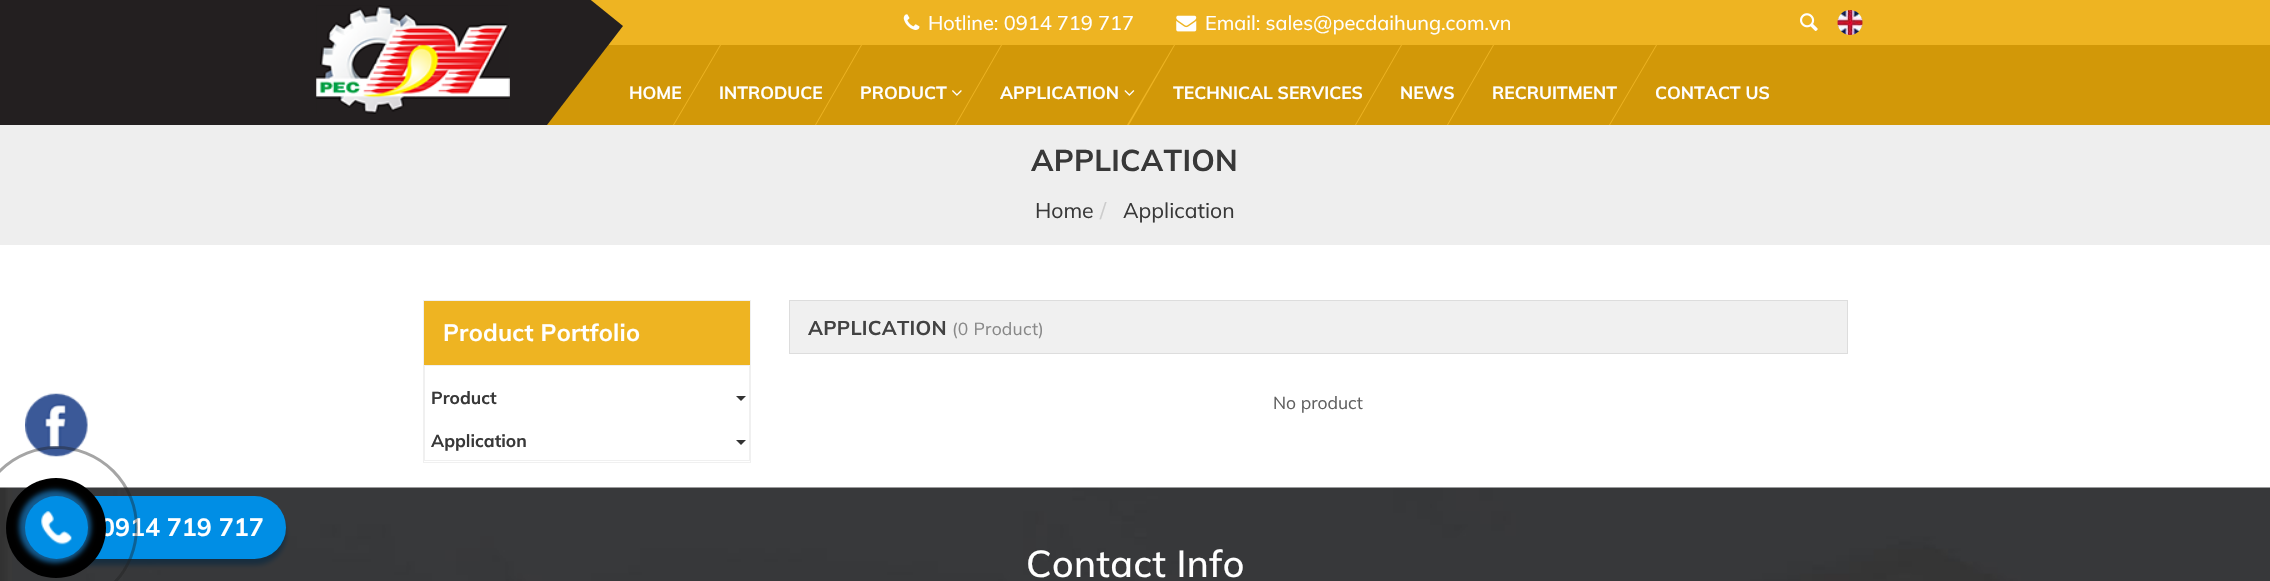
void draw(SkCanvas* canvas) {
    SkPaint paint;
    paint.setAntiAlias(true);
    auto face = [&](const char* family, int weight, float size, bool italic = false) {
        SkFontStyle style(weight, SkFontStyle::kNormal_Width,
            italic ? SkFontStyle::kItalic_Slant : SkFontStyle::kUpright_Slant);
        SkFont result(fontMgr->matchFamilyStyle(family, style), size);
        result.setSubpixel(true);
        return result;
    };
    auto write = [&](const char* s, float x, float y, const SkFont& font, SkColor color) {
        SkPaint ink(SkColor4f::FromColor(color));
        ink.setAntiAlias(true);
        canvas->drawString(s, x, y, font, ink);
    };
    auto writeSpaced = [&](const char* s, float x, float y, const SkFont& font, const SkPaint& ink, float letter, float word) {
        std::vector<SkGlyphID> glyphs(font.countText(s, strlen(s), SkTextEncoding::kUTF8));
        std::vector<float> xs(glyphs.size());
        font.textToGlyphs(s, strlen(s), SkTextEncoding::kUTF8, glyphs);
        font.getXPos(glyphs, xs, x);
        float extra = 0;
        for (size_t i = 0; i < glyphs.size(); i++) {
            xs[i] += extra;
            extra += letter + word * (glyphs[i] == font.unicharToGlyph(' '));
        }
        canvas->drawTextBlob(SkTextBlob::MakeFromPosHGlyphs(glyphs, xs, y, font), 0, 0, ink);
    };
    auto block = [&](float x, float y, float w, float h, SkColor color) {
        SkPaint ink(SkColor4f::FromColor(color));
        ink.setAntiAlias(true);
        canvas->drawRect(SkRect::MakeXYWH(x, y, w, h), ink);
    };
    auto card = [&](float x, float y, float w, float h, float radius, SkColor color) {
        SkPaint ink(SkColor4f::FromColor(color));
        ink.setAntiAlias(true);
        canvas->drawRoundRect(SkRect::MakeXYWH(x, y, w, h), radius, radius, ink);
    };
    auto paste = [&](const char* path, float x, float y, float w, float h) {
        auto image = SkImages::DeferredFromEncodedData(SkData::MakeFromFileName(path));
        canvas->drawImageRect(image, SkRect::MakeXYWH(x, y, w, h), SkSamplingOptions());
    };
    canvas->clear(SK_ColorWHITE);
    block(591, 0, 1679, 45, SkColorSetRGB(238, 180, 34));
    block(0, 0, 385, 125, SkColorSetRGB(35, 31, 32));
    block(547, 45, 1723, 80, SkColorSetRGB(210, 152, 8));
    paint.setColor(SkColorSetRGB(35, 31, 32));
    canvas->drawPath(SkPathBuilder().moveTo(385, -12).lineTo(385, 125).lineTo(547, 125).lineTo(623, 26).lineTo(576, -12).close().detach(), paint);
    paste("pic1.png", 316, 5, 194, 109);
    paste("pic2.png", 903, 14, 17, 16);
    auto kFont1 = face("Mulish", 400, 20);
    write("Hotline: 0914 719 717", 928, 30, kFont1, SK_ColorWHITE);
    paste("pic3.png", 1176, 15, 21, 17);
    write("Email: sales@pecdaihung.com.vn", 1205, 30, kFont1, SK_ColorWHITE);
    paste("pic4.png", 1800, 13, 18, 18);
    paste("pic5.png", 1837, 10, 26, 25);
    auto kFont2 = face("Muli", 700, 17.5f);
    write("HOME", 629, 99, kFont2, SK_ColorWHITE);
    write("INTRODUCE", 719, 99, kFont2, SK_ColorWHITE);
    paint.setColor(SkColorSetRGB(238, 180, 34));
    canvas->drawPath(SkPathBuilder().moveTo(720, 45).lineTo(721, 45).lineTo(674, 125).lineTo(673, 125).close().detach(), paint);
    write("PRODUCT", 860, 99, kFont2, SK_ColorWHITE);
    canvas->drawPath(SkPathBuilder().moveTo(861, 45).lineTo(862, 45).lineTo(816, 125).lineTo(815, 125).close().detach(), paint);
    paste("pic6.png", 952, 90, 10, 6);
    write("APPLICATION", 1000, 99, kFont2, SK_ColorWHITE);
    canvas->drawPath(SkPathBuilder().moveTo(1001, 45).lineTo(1002, 45).lineTo(956, 125).lineTo(955, 125).close().detach(), paint);
    paste("pic7.png", 1124, 90, 11, 6);
    write("TECHNICAL SERVICES", 1173, 99, kFont2, SK_ColorWHITE);
    canvas->drawPath(SkPathBuilder().moveTo(1174, 45).lineTo(1175, 45).lineTo(1129, 125).lineTo(1127, 125).close().detach(), paint);
    write("NEWS", 1400, 99, kFont2, SK_ColorWHITE);
    canvas->drawPath(SkPathBuilder().moveTo(1401, 45).lineTo(1402, 45).lineTo(1356, 125).lineTo(1355, 125).close().detach(), paint);
    write("RECRUITMENT", 1492, 99, kFont2, SK_ColorWHITE);
    canvas->drawPath(SkPathBuilder().moveTo(1493, 45).lineTo(1494, 45).lineTo(1448, 125).lineTo(1447, 125).close().detach(), paint);
    write("CONTACT US", 1655, 99, kFont2, SK_ColorWHITE);
    canvas->drawPath(SkPathBuilder().moveTo(1656, 45).lineTo(1657, 45).lineTo(1610, 125).lineTo(1609, 125).close().detach(), paint);
    block(0, 125, 2270, 120, SkColorSetRGB(238, 238, 238));
    auto kFont3 = face("Mulish", 700, 30);
    paint.setColor(SkColorSetRGB(56, 56, 56));
    writeSpaced("APPLICATION", 1031, 171, kFont3, paint, 0.25f, 0);
    auto kFont4 = face("Mulish", 400, 21.25f);
    write("Home", 1035, 218, kFont4, SkColorSetRGB(56, 56, 56));
    write("/", 1100, 218, kFont4, SkColorSetRGB(204, 204, 204));
    write("Application", 1123, 218, kFont4, SkColorSetRGB(56, 56, 56));
    paint.setStyle(SkPaint::kStroke_Style);
    paint.setStrokeWidth(1);
    paint.setColor(SkColorSetRGB(240, 240, 240));
    canvas->drawRect(SkRect::MakeXYWH(423.5f, 300.5f, 327, 162), paint);
    block(424, 301, 326, 64, SkColorSetRGB(238, 180, 34));
    auto kFont5 = face("Mulish", 700, 23.75f);
    paint.setStyle(SkPaint::kFill_Style);
    paint.setColor(SK_ColorWHITE);
    writeSpaced("Product Portfolio", 443, 341, kFont5, paint, 0.25f, 0);
    paint.setStyle(SkPaint::kStroke_Style);
    paint.setColor(SkColorSetRGB(240, 240, 240));
    canvas->drawRect(SkRect::MakeXYWH(424.5f, 365.5f, 325, 95), paint);
    auto kFont6 = face("Mulish", 700, 17.5f);
    write("Product", 431, 404, kFont6, SkColorSetRGB(56, 56, 56));
    paint.setStyle(SkPaint::kFill_Style);
    paint.setColor(SkColorSetRGB(51, 51, 51));
    canvas->drawPath(SkPathBuilder().moveTo(736, 396).lineTo(746, 396).lineTo(741, 401).close().detach(), paint);
    write("Application", 431, 447, kFont6, SkColorSetRGB(56, 56, 56));
    canvas->drawPath(SkPathBuilder().moveTo(736, 440).lineTo(746, 440).lineTo(741, 445).close().detach(), paint);
    paint.setColor(SkColorSetRGB(240, 240, 240));
    canvas->drawRect(SkRect::MakeXYWH(789.5f, 300.5f, 1058, 53), paint);
    paint.setStyle(SkPaint::kStroke_Style);
    paint.setColor(SkColorSetRGB(221, 221, 221));
    canvas->drawRect(SkRect::MakeXYWH(789.5f, 300.5f, 1058, 53), paint);
    auto kFont7 = face("Mulish", 700, 20);
    paint.setStyle(SkPaint::kFill_Style);
    paint.setColor(SkColorSetRGB(66, 66, 66));
    writeSpaced("APPLICATION", 808, 335, kFont7, paint, 0.25f, 0);
    auto kFont8 = face("Mulish", 400, 17.5f);
    paint.setColor(SkColorSetRGB(136, 136, 136));
    writeSpaced("(0 Product)", 952, 335, kFont8, paint, 0.25f, 0);
    write("No product", 1273, 409, kFont8, SkColorSetRGB(96, 96, 96));
    paste("pic8.png", 25, 393, 63, 64);
    paste("pic10.png", 0, 487, 2270, 94);
    paint.setColor(SkColorSetRGB(23, 45, 62));
    paint.setMaskFilter(SkMaskFilter::MakeBlur(kNormal_SkBlurStyle, 2.5f));
    canvas->drawRoundRect(SkRect::MakeXYWH(25, 503, 261, 62), 31, 31, paint);
    paint.setMaskFilter(nullptr);
    card(25, 496, 261, 63, 31.5f, SkColorSetRGB(0, 142, 229));
    auto kFont9 = face("Mulish", 700, 25);
    write("0914 719 717", 100, 536, kFont9, SK_ColorWHITE);
    paint.setStyle(SkPaint::kStroke_Style);
    paint.setStrokeWidth(3);
    paint.setColor(SkColorSetARGB(102, 30, 30, 30));
    canvas->drawCircle(56.5f, 527.5f, 80, paint);
    paint.setStyle(SkPaint::kFill_Style);
    paint.setColor(SK_ColorBLACK);
    canvas->drawCircle(56, 528, 50, paint);
    paint.setColor(SkColorSetRGB(20, 90, 141));
    paint.setMaskFilter(SkMaskFilter::MakeBlur(kNormal_SkBlurStyle, 2.5f));
    canvas->drawRoundRect(SkRect::MakeXYWH(19, 490, 72, 73), 36, 36, paint);
    paint.setMaskFilter(nullptr);
    paint.setColor(SkColorSetRGB(0, 142, 229));
    canvas->drawCircle(56.5f, 527.5f, 31.5f, paint);
    paste("pic9.png", 41, 511, 31, 34);
    auto kFont10 = face("Mulish", 500, 37.5f);
    paint.setColor(SK_ColorWHITE);
    writeSpaced("Contact Info", 1026, 577, kFont10, paint, 0.4f, 0);
}
